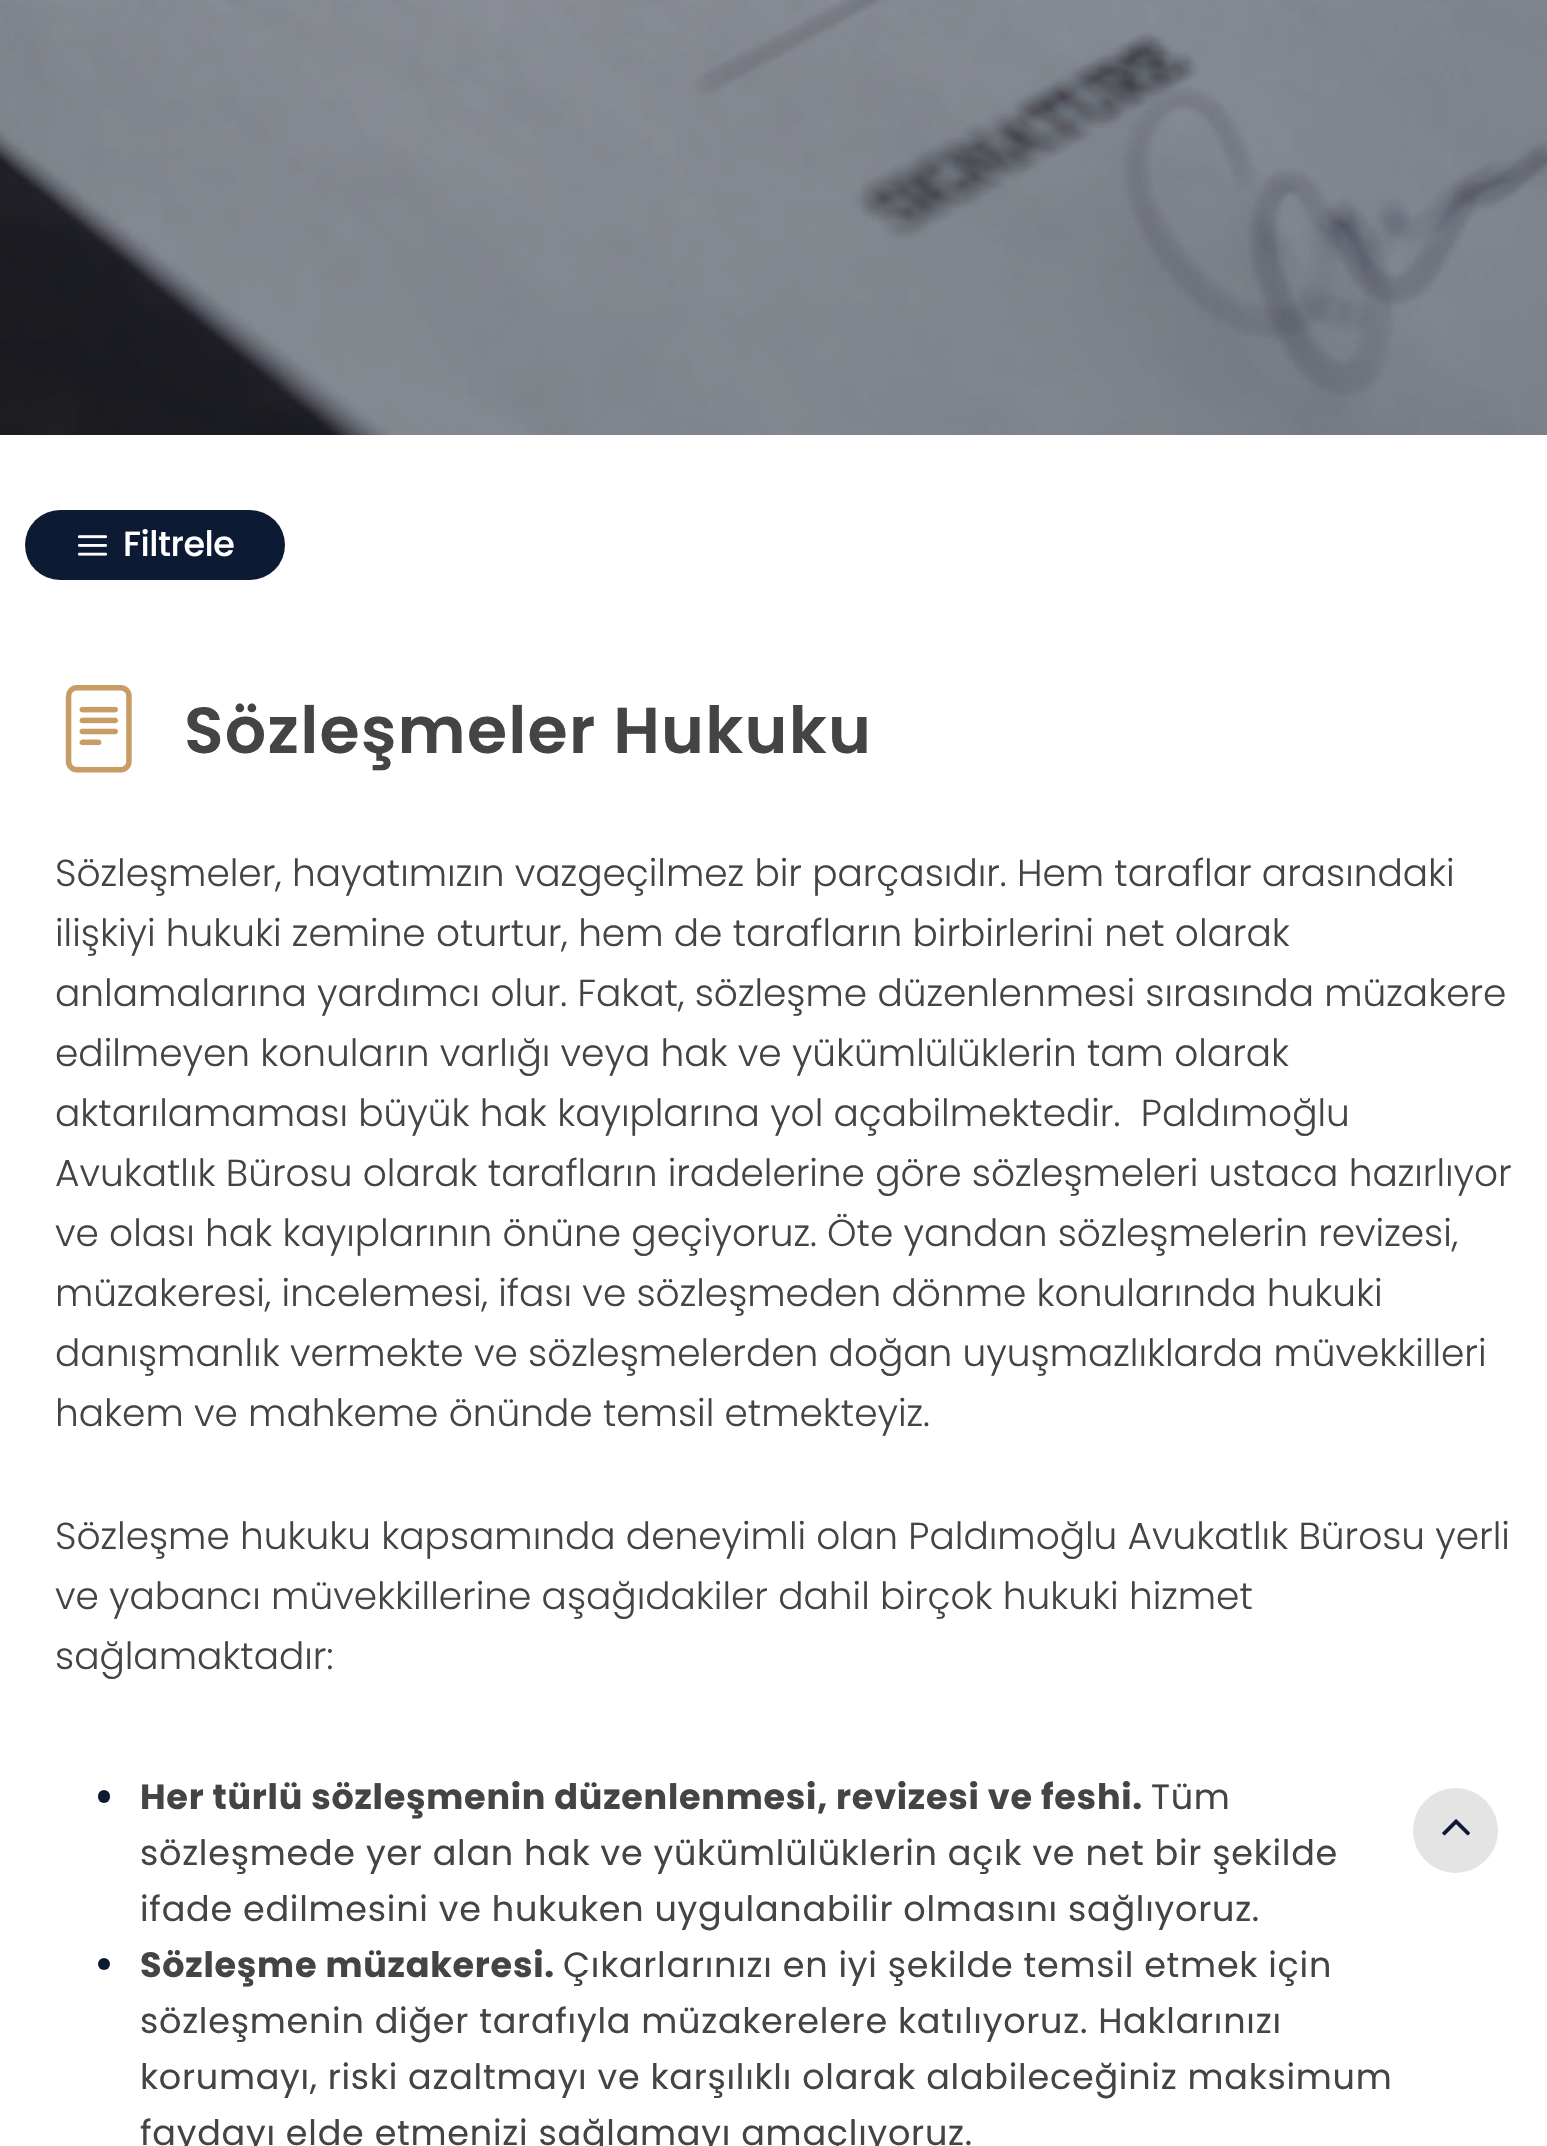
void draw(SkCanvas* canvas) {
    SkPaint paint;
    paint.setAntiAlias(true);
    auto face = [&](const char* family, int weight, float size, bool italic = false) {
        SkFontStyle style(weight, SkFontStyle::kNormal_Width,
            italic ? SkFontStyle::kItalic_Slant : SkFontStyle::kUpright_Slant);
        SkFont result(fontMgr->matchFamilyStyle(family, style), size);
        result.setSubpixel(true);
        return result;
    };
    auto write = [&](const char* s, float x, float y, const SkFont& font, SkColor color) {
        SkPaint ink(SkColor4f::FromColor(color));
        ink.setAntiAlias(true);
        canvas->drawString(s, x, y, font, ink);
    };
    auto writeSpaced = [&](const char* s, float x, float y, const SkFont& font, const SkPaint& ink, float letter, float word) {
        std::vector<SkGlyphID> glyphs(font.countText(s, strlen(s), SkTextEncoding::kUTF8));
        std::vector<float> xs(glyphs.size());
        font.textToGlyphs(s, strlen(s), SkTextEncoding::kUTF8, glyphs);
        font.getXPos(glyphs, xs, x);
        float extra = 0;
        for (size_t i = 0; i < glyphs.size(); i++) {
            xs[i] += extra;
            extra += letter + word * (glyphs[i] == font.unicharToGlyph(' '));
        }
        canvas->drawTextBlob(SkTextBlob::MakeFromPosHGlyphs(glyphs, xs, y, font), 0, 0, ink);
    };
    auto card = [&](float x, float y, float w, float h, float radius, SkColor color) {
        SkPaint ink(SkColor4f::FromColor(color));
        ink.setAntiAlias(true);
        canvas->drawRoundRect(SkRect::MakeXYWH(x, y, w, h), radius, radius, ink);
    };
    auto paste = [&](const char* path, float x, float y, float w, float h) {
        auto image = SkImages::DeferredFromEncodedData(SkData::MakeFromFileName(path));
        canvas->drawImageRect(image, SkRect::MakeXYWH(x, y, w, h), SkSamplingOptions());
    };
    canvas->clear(SK_ColorWHITE);
    paste("pic1.png", 0, 0, 1547, 435);
    card(25, 510, 260, 70, 35, SkColorSetRGB(13, 26, 51));
    paste("pic2.png", 77, 535, 31, 21);
    auto kFont1 = face("Poppins", 500, 35);
    paint.setColor(SK_ColorWHITE);
    writeSpaced("Filtrele", 123, 556, kFont1, paint, -0.5f, 0);
    paste("pic3.png", 65, 685, 67, 88);
    auto kFont2 = face("Poppins", 600, 65);
    paint.setColor(SkColorSetRGB(68, 68, 68));
    writeSpaced("Sözleşmeler Hukuku", 184, 753, kFont2, paint, 1.25f, 0);
    auto kFont3 = face("Poppins", 300, 37.5f);
    write("Sözleşmeler, hayatımızın vazgeçilmez bir parçasıdır. Hem taraflar arasındaki", 55, 886, kFont3, SkColorSetRGB(68, 68, 68));
    write("ilişkiyi hukuki zemine oturtur, hem de tarafların birbirlerini net olarak", 55, 946, kFont3, SkColorSetRGB(68, 68, 68));
    write("anlamalarına yardımcı olur. Fakat, sözleşme düzenlenmesi sırasında müzakere", 55, 1006, kFont3, SkColorSetRGB(68, 68, 68));
    write("edilmeyen konuların varlığı veya hak ve yükümlülüklerin tam olarak", 55, 1066, kFont3, SkColorSetRGB(68, 68, 68));
    write("aktarılamaması büyük hak kayıplarına yol açabilmektedir.  Paldımoğlu", 55, 1126, kFont3, SkColorSetRGB(68, 68, 68));
    write("Avukatlık Bürosu olarak tarafların iradelerine göre sözleşmeleri ustaca hazırlıyor", 55, 1186, kFont3, SkColorSetRGB(68, 68, 68));
    write("ve olası hak kayıplarının önüne geçiyoruz. Öte yandan sözleşmelerin revizesi,", 55, 1246, kFont3, SkColorSetRGB(68, 68, 68));
    write("müzakeresi, incelemesi, ifası ve sözleşmeden dönme konularında hukuki", 55, 1306, kFont3, SkColorSetRGB(68, 68, 68));
    write("danışmanlık vermekte ve sözleşmelerden doğan uyuşmazlıklarda müvekkilleri", 55, 1366, kFont3, SkColorSetRGB(68, 68, 68));
    write("hakem ve mahkeme önünde temsil etmekteyiz.", 55, 1426, kFont3, SkColorSetRGB(68, 68, 68));
    write("Sözleşme hukuku kapsamında deneyimli olan Paldımoğlu Avukatlık Bürosu yerli", 55, 1549, kFont3, SkColorSetRGB(68, 68, 68));
    write("ve yabancı müvekkillerine aşağıdakiler dahil birçok hukuki hizmet", 55, 1609, kFont3, SkColorSetRGB(68, 68, 68));
    write("sağlamaktadır:", 55, 1669, kFont3, SkColorSetRGB(68, 68, 68));
    card(98, 1790, 12, 13, 6, SkColorSetRGB(13, 26, 51));
    auto kFont4 = face("Poppins", 700, 35);
    writeSpaced("Her türlü sözleşmenin düzenlenmesi, revizesi ve feshi.", 140, 1809, kFont4, paint, 0.75f, 0);
    auto kFont5 = face("Poppins", 400, 35);
    writeSpaced("Tüm", 1151, 1809, kFont5, paint, 0.75f, 0);
    writeSpaced("sözleşmede yer alan hak ve yükümlülüklerin açık ve net bir şekilde", 140, 1865, kFont5, paint, 0.75f, 0);
    writeSpaced("ifade edilmesini ve hukuken uygulanabilir olmasını sağlıyoruz.", 140, 1921, kFont5, paint, 0.75f, 0);
    paint.setColor(SkColorSetRGB(13, 26, 51));
    canvas->drawCircle(104, 1964, 6, paint);
    paint.setColor(SkColorSetRGB(68, 68, 68));
    writeSpaced("Sözleşme müzakeresi.", 140, 1977, kFont4, paint, 0.75f, 0);
    writeSpaced("Çıkarlarınızı en iyi şekilde temsil etmek için", 563, 1977, kFont5, paint, 0.75f, 0);
    writeSpaced("sözleşmenin diğer tarafıyla müzakerelere katılıyoruz. Haklarınızı", 140, 2033, kFont5, paint, 0.75f, 0);
    writeSpaced("korumayı, riski azaltmayı ve karşılıklı olarak alabileceğiniz maksimum", 140, 2089, kFont5, paint, 0.75f, 0);
    writeSpaced("faydayı elde etmenizi sağlamayı amaçlıyoruz.", 140, 2145, kFont5, paint, 0.75f, 0);
    paint.setColor(SkColorSetRGB(228, 228, 228));
    canvas->drawCircle(1455.5f, 1830.5f, 42.5f, paint);
    paste("pic4.png", 1442, 1819, 28, 17);
}
